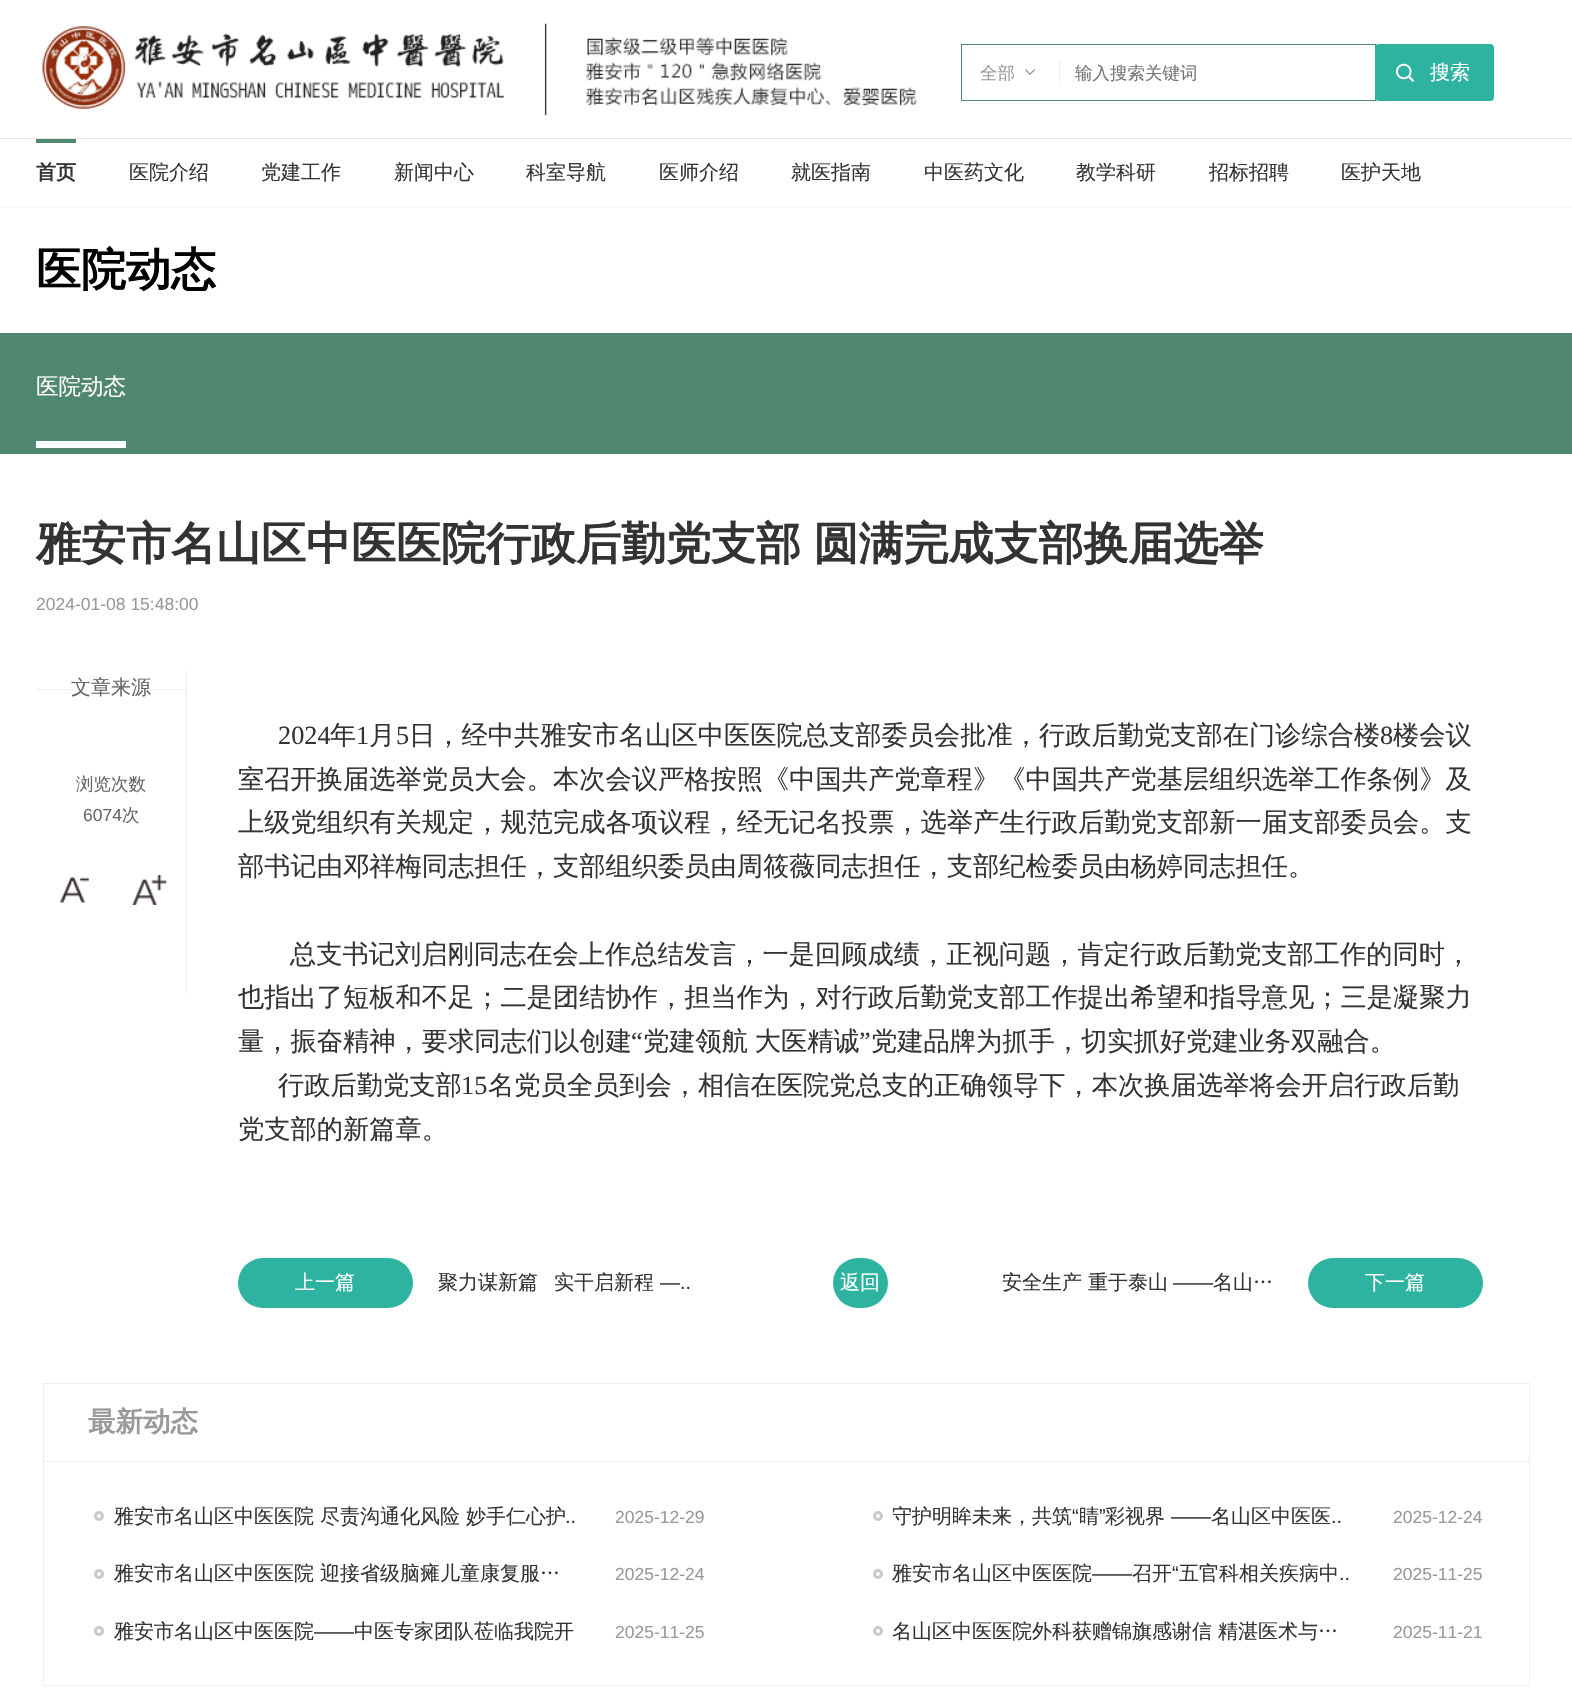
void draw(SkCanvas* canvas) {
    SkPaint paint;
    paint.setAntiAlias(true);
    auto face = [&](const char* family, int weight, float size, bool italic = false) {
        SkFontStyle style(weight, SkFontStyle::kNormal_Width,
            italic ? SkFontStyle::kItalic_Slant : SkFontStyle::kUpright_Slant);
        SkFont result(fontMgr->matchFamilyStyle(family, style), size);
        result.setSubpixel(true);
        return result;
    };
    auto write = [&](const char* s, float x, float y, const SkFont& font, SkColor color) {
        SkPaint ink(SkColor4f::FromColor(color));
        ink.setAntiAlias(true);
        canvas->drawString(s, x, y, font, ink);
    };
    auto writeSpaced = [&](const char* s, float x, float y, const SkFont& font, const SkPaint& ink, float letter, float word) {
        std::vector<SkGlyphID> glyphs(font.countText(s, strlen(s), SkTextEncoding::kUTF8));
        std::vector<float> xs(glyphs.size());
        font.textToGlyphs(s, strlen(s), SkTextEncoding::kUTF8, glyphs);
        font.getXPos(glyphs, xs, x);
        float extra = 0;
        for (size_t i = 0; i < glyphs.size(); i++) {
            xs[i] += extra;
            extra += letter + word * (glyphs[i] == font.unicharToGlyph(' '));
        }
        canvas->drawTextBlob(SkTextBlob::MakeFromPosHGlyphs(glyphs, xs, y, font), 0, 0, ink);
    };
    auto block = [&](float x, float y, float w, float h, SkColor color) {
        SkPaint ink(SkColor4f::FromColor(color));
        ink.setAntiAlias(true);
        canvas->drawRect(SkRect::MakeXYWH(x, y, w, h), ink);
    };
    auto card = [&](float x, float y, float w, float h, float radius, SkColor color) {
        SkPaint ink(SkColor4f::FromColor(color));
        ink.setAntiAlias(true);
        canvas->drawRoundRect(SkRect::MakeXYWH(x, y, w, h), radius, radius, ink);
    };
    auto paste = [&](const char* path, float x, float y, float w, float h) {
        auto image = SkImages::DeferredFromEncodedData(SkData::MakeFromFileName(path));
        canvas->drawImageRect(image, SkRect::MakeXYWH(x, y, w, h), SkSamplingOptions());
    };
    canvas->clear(SK_ColorWHITE);
    paste("pic1.png", 42, 23, 875, 93);
    paint.setStyle(SkPaint::kStroke_Style);
    paint.setStrokeWidth(1);
    paint.setColor(SkColorSetRGB(79, 136, 110));
    canvas->drawRect(SkRect::MakeXYWH(961.5f, 44.5f, 414, 56), paint);
    block(1059, 60, 1, 25, SkColorSetRGB(238, 238, 238));
    auto kFont1 = face("WenQuanYi Zen Hei", 500, 17.5f);
    write("全部", 980, 79, kFont1, SkColorSetRGB(153, 153, 153));
    paste("pic2.png", 1025, 69, 10, 6);
    write("输入搜索关键词", 1075, 79, kFont1, SkColorSetRGB(117, 117, 117));
    card(1375, 44, 119, 57, 4, SkColorSetRGB(45, 179, 160));
    paste("pic3.png", 1396, 63, 18, 19);
    auto kFont2 = face("WenQuanYi Zen Hei", 500, 20);
    write("搜索", 1430, 79, kFont2, SK_ColorWHITE);
    block(0, 138, 1572, 1, SkColorSetRGB(228, 228, 228));
    paint.setStrokeWidth(1.2f);
    paint.setColor(SkColorSetRGB(229, 229, 229));
    paint.setPathEffect(SkDashPathEffect::Make({{1.25f, 1.25f}}, 0));
    canvas->drawPath(SkPathBuilder().moveTo(0, 207).lineTo(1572.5f, 207).detach(), paint);
    paint.setPathEffect(nullptr);
    block(36, 139, 40, 4, SkColorSetRGB(79, 136, 110));
    auto kFont3 = face("WenQuanYi Zen Hei", 700, 20);
    write("首页", 36, 179, kFont3, SkColorSetRGB(51, 51, 51));
    write("医院介绍", 129, 179, kFont2, SkColorSetRGB(51, 51, 51));
    write("党建工作", 261, 179, kFont2, SkColorSetRGB(51, 51, 51));
    write("新闻中心", 394, 179, kFont2, SkColorSetRGB(51, 51, 51));
    write("科室导航", 526, 179, kFont2, SkColorSetRGB(51, 51, 51));
    write("医师介绍", 659, 179, kFont2, SkColorSetRGB(51, 51, 51));
    write("就医指南", 791, 179, kFont2, SkColorSetRGB(51, 51, 51));
    write("中医药文化", 924, 179, kFont2, SkColorSetRGB(51, 51, 51));
    write("教学科研", 1076, 179, kFont2, SkColorSetRGB(51, 51, 51));
    write("招标招聘", 1209, 179, kFont2, SkColorSetRGB(51, 51, 51));
    write("医护天地", 1341, 179, kFont2, SkColorSetRGB(51, 51, 51));
    auto kFont4 = face("WenQuanYi Zen Hei", 700, 45);
    write("医院动态", 36, 285, kFont4, SK_ColorBLACK);
    block(0, 333, 1572, 121, SkColorSetRGB(79, 136, 110));
    block(36, 441, 90, 7, SK_ColorWHITE);
    auto kFont5 = face("WenQuanYi Zen Hei", 500, 22.5f);
    write("医院动态", 36, 394, kFont5, SK_ColorWHITE);
    paint.setStyle(SkPaint::kFill_Style);
    paint.setColor(SkColorSetRGB(51, 51, 51));
    writeSpaced("雅安市名山区中医医院行政后勤党支部 圆满完成支部换届选举", 36, 559, kFont4, paint, 0, -1);
    auto kFont6 = face("Liberation Sans", 400, 17.5f);
    write("2024-01-08 15:48:00", 36, 610, kFont6, SkColorSetRGB(153, 153, 153));
    block(186, 670, 1, 323, SkColorSetRGB(238, 238, 238));
    write("文章来源", 71, 694, kFont2, SkColorSetRGB(102, 102, 102));
    block(36, 689, 38, 1, SkColorSetRGB(238, 238, 238));
    block(149, 689, 37, 1, SkColorSetRGB(238, 238, 238));
    write("浏览次数", 76, 790, kFont1, SkColorSetRGB(102, 102, 102));
    write("6074", 83, 821, kFont6, SkColorSetRGB(102, 102, 102));
    write("次", 122, 821, kFont1, SkColorSetRGB(102, 102, 102));
    paste("pic4.png", 60, 877, 29, 26);
    paste("pic5.png", 132, 875, 35, 30);
    auto kFont7 = face("Liberation Serif", 400, 26.25f);
    write("2024", 278, 744, kFont7, SkColorSetRGB(51, 51, 51));
    auto kFont8 = face("WenQuanYi Zen Hei", 500, 26.25f);
    write("年", 330, 744, kFont8, SkColorSetRGB(51, 51, 51));
    write("1", 356, 744, kFont7, SkColorSetRGB(51, 51, 51));
    write("月", 369, 744, kFont8, SkColorSetRGB(51, 51, 51));
    write("5", 396, 744, kFont7, SkColorSetRGB(51, 51, 51));
    write("日，经中共雅安市名山区中医医院总支部委员会批准，行政后勤党支部在门诊综合楼", 409, 744, kFont8, SkColorSetRGB(51, 51, 51));
    write("8", 1380, 744, kFont7, SkColorSetRGB(51, 51, 51));
    write("楼会议", 1393, 744, kFont8, SkColorSetRGB(51, 51, 51));
    write("室召开换届选举党员大会。本次会议严格按照《中国共产党章程》《中国共产党基层组织选举工作条例》及", 238, 788, kFont8, SkColorSetRGB(51, 51, 51));
    write("上级党组织有关规定，规范完成各项议程，经无记名投票，选举产生行政后勤党支部新一届支部委员会。支", 238, 831, kFont8, SkColorSetRGB(51, 51, 51));
    write("部书记由邓祥梅同志担任，支部组织委员由周筱薇同志担任，支部纪检委员由杨婷同志担任。", 238, 875, kFont8, SkColorSetRGB(51, 51, 51));
    write("总支书记刘启刚同志在会上作总结发言，一是回顾成绩，正视问题，肯定行政后勤党支部工作的同时，", 290, 963, kFont8, SkColorSetRGB(51, 51, 51));
    write("也指出了短板和不足；二是团结协作，担当作为，对行政后勤党支部工作提出希望和指导意见；三是凝聚力", 238, 1006, kFont8, SkColorSetRGB(51, 51, 51));
    write("量，振奋精神，要求同志们以创建", 238, 1050, kFont8, SkColorSetRGB(51, 51, 51));
    write("“", 631, 1050, kFont7, SkColorSetRGB(51, 51, 51));
    writeSpaced("党建领航 大医精诚", 643, 1050, kFont8, paint, 0, -1);
    write("”", 859, 1050, kFont7, SkColorSetRGB(51, 51, 51));
    write("党建品牌为抓手，切实抓好党建业务双融合。", 871, 1050, kFont8, SkColorSetRGB(51, 51, 51));
    write("行政后勤党支部", 278, 1094, kFont8, SkColorSetRGB(51, 51, 51));
    write("15", 461, 1094, kFont7, SkColorSetRGB(51, 51, 51));
    write("名党员全员到会，相信在医院党总支的正确领导下，本次换届选举将会开启行政后勤", 488, 1094, kFont8, SkColorSetRGB(51, 51, 51));
    write("党支部的新篇章。", 238, 1138, kFont8, SkColorSetRGB(51, 51, 51));
    card(238, 1258, 175, 50, 25, SkColorSetRGB(45, 179, 160));
    write("上一篇", 295, 1289, kFont2, SK_ColorWHITE);
    write("聚力谋新篇", 438, 1289, kFont2, SkColorSetRGB(51, 51, 51));
    write("实干启新程", 554, 1289, kFont2, SkColorSetRGB(51, 51, 51));
    auto kFont9 = face("Liberation Sans", 400, 20);
    write("—..", 660, 1289, kFont9, SkColorSetRGB(51, 51, 51));
    card(833, 1258, 55, 50, 25, SkColorSetRGB(45, 179, 160));
    write("返回", 840, 1289, kFont2, SK_ColorWHITE);
    write("安全生产 重于泰山", 1002, 1289, kFont2, SkColorSetRGB(51, 51, 51));
    write("——", 1173, 1289, kFont9, SkColorSetRGB(51, 51, 51));
    write("名山…", 1213, 1289, kFont2, SkColorSetRGB(51, 51, 51));
    card(1308, 1258, 175, 50, 25, SkColorSetRGB(45, 179, 160));
    write("下一篇", 1365, 1289, kFont2, SK_ColorWHITE);
    paint.setStyle(SkPaint::kStroke_Style);
    paint.setStrokeWidth(1);
    paint.setColor(SkColorSetRGB(238, 238, 238));
    canvas->drawRect(SkRect::MakeXYWH(43.5f, 1383.5f, 1486, 302), paint);
    block(44, 1461, 1485, 1, SkColorSetRGB(238, 238, 238));
    auto kFont10 = face("WenQuanYi Zen Hei", 700, 27.5f);
    write("最新动态", 88, 1431, kFont10, SkColorSetRGB(153, 153, 153));
    paint.setStrokeWidth(3);
    paint.setColor(SkColorSetRGB(201, 201, 201));
    canvas->drawCircle(99, 1516, 3.5f, paint);
    write("雅安市名山区中医医院 尽责沟通化风险 妙手仁心护", 114, 1523, kFont2, SkColorSetRGB(51, 51, 51));
    write("..", 565, 1523, kFont9, SkColorSetRGB(51, 51, 51));
    write("2025-12-29", 615, 1523, kFont6, SkColorSetRGB(153, 153, 153));
    canvas->drawCircle(878, 1516, 3.5f, paint);
    canvas->save();
    canvas->clipRect(SkRect::MakeXYWH(893, 1488, 463, 57));
    write("守护明眸未来，共筑", 892, 1523, kFont2, SkColorSetRGB(51, 51, 51));
    canvas->restore();
    write("“", 1072, 1523, kFont9, SkColorSetRGB(51, 51, 51));
    write("睛", 1079, 1523, kFont2, SkColorSetRGB(51, 51, 51));
    write("”", 1099, 1523, kFont9, SkColorSetRGB(51, 51, 51));
    write("彩视界", 1105, 1523, kFont2, SkColorSetRGB(51, 51, 51));
    write("名山区中医医", 1211, 1523, kFont2, SkColorSetRGB(51, 51, 51));
    write("——", 1171, 1523, kFont9, SkColorSetRGB(51, 51, 51));
    write("..", 1331, 1523, kFont9, SkColorSetRGB(51, 51, 51));
    write("2025-12-24", 1393, 1523, kFont6, SkColorSetRGB(153, 153, 153));
    canvas->drawCircle(99, 1574, 3.5f, paint);
    write("雅安市名山区中医医院 迎接省级脑瘫儿童康复服…", 114, 1580, kFont2, SkColorSetRGB(51, 51, 51));
    write("2025-12-24", 615, 1580, kFont6, SkColorSetRGB(153, 153, 153));
    canvas->drawCircle(878, 1574, 3.5f, paint);
    write("雅安市名山区中医医院", 892, 1580, kFont2, SkColorSetRGB(51, 51, 51));
    write("——", 1092, 1580, kFont9, SkColorSetRGB(51, 51, 51));
    write("召开", 1132, 1580, kFont2, SkColorSetRGB(51, 51, 51));
    write("“", 1172, 1580, kFont9, SkColorSetRGB(51, 51, 51));
    write("五官科相关疾病中", 1179, 1580, kFont2, SkColorSetRGB(51, 51, 51));
    write("..", 1339, 1580, kFont9, SkColorSetRGB(51, 51, 51));
    write("2025-11-25", 1393, 1580, kFont6, SkColorSetRGB(153, 153, 153));
    canvas->drawCircle(99, 1631, 3.5f, paint);
    write("雅安市名山区中医医院", 114, 1638, kFont2, SkColorSetRGB(51, 51, 51));
    write("——", 314, 1638, kFont9, SkColorSetRGB(51, 51, 51));
    write("中医专家团队莅临我院开", 354, 1638, kFont2, SkColorSetRGB(51, 51, 51));
    write("2025-11-25", 615, 1638, kFont6, SkColorSetRGB(153, 153, 153));
    canvas->drawCircle(878, 1631, 3.5f, paint);
    write("名山区中医医院外科获赠锦旗感谢信 精湛医术与…", 892, 1638, kFont2, SkColorSetRGB(51, 51, 51));
    write("2025-11-21", 1393, 1638, kFont6, SkColorSetRGB(153, 153, 153));
}
